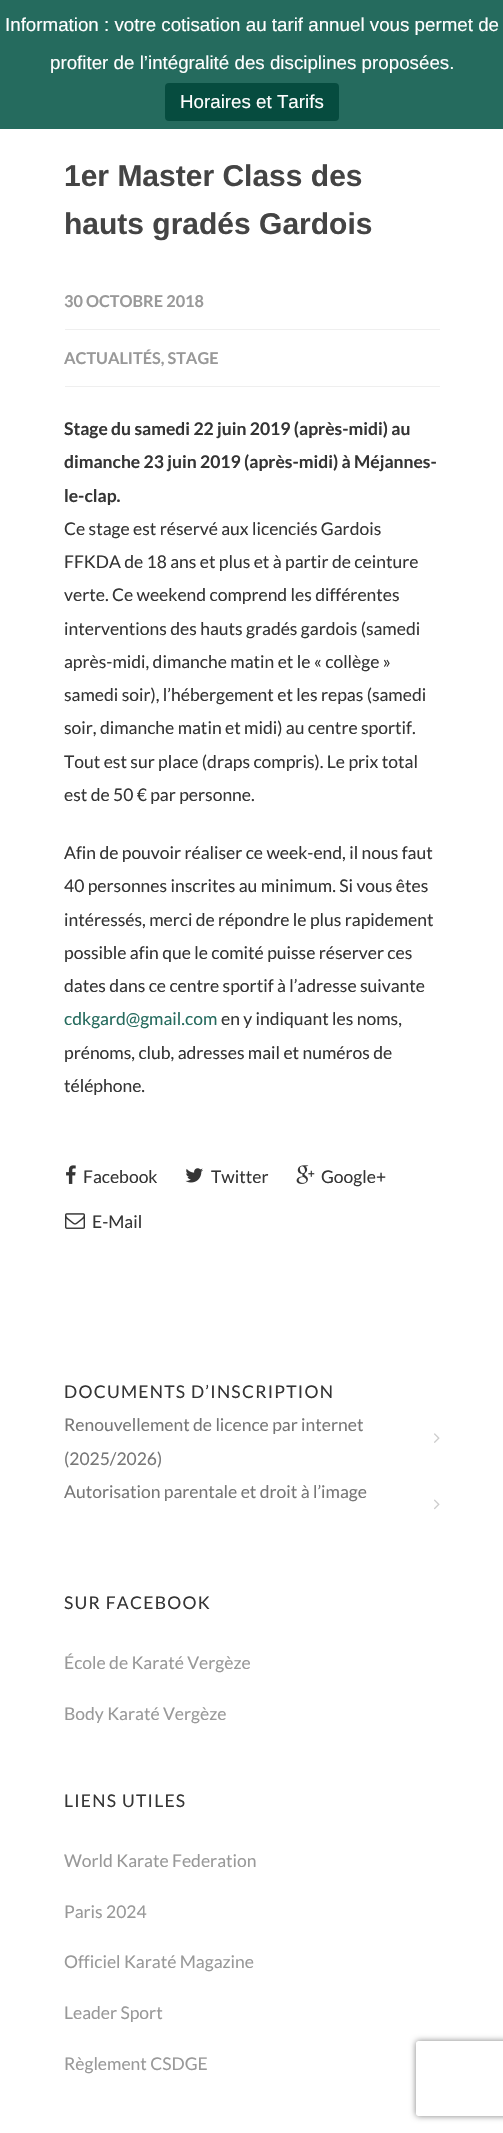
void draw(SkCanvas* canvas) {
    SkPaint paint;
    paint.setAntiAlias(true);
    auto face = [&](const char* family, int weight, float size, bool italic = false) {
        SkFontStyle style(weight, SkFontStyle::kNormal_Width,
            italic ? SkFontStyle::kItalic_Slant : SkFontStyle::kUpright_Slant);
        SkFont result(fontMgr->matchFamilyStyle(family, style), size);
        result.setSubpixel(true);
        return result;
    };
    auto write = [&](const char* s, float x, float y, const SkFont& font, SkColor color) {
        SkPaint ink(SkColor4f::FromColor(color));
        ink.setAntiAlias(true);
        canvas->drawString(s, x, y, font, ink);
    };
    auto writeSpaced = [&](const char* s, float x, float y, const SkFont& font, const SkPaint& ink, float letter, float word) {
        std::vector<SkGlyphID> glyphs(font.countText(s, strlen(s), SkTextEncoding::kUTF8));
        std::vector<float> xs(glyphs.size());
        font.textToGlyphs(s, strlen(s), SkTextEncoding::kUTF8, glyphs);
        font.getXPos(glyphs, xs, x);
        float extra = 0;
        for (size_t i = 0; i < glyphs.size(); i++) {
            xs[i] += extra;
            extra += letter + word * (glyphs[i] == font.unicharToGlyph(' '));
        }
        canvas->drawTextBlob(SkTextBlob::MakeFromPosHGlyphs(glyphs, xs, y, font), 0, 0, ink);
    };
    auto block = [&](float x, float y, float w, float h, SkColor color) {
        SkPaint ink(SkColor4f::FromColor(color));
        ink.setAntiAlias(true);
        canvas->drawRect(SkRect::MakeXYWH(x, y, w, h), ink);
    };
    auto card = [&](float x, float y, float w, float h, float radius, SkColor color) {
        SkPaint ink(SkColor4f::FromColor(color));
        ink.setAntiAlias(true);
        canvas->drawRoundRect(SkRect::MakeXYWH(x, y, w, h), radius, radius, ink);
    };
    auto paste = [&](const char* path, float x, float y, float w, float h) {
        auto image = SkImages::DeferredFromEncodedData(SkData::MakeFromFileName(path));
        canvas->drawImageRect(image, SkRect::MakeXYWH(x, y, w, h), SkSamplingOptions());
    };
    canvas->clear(SK_ColorWHITE);
    block(0, 0, 503, 129, SkColorSetRGB(37, 107, 94));
    auto kFont1 = face("Liberation Sans", 400, 18.75f);
    write("Information : votre cotisation au tarif annuel vous permet de", 5, 31, kFont1, SK_ColorWHITE);
    write("profiter de l’intégralité des disciplines proposées.", 50, 69, kFont1, SK_ColorWHITE);
    card(165, 83, 174, 38, 4, SkColorSetRGB(6, 76, 63));
    write("Horaires et Tarifs", 180, 108, kFont1, SK_ColorWHITE);
    auto kFont2 = face("Liberation Sans", 700, 30);
    write("1er Master Class des", 64, 186, kFont2, SkColorSetRGB(68, 68, 68));
    write("hauts gradés Gardois", 64, 234, kFont2, SkColorSetRGB(68, 68, 68));
    block(65, 329, 375, 1, SkColorSetRGB(239, 239, 239));
    auto kFont3 = face("Lato", 700, 16.25f);
    write("30 OCTOBRE 2018", 64, 307, kFont3, SkColorSetRGB(153, 153, 153));
    block(65, 386, 375, 1, SkColorSetRGB(239, 239, 239));
    write("ACTUALITÉS, STAGE", 64, 364, kFont3, SkColorSetRGB(153, 153, 153));
    auto kFont4 = face("Lato", 700, 17.5f);
    write("Stage du samedi 22 juin 2019 (après-midi) au", 64, 435, kFont4, SkColorSetRGB(53, 53, 53));
    write("dimanche 23 juin 2019 (après-midi) à Méjannes-", 64, 468, kFont4, SkColorSetRGB(53, 53, 53));
    write("le-clap.", 64, 502, kFont4, SkColorSetRGB(53, 53, 53));
    auto kFont5 = face("Lato", 400, 17.5f);
    write("Ce stage est réservé aux licenciés Gardois", 64, 535, kFont5, SkColorSetRGB(53, 53, 53));
    write("FFKDA de 18 ans et plus et à partir de ceinture", 64, 568, kFont5, SkColorSetRGB(53, 53, 53));
    write("verte. Ce weekend comprend les différentes", 64, 601, kFont5, SkColorSetRGB(53, 53, 53));
    write("interventions des hauts gradés gardois (samedi", 64, 635, kFont5, SkColorSetRGB(53, 53, 53));
    write("après-midi, dimanche matin et le « collège »", 64, 668, kFont5, SkColorSetRGB(53, 53, 53));
    write("samedi soir), l’hébergement et les repas (samedi", 64, 701, kFont5, SkColorSetRGB(53, 53, 53));
    write("soir, dimanche matin et midi) au centre sportif.", 64, 734, kFont5, SkColorSetRGB(53, 53, 53));
    write("Tout est sur place (draps compris). Le prix total", 64, 768, kFont5, SkColorSetRGB(53, 53, 53));
    write("est de 50 € par personne.", 64, 801, kFont5, SkColorSetRGB(53, 53, 53));
    write("Afin de pouvoir réaliser ce week-end, il nous faut", 64, 859, kFont5, SkColorSetRGB(53, 53, 53));
    write("40 personnes inscrites au minimum. Si vous êtes", 64, 892, kFont5, SkColorSetRGB(53, 53, 53));
    write("intéressés, merci de répondre le plus rapidement", 64, 926, kFont5, SkColorSetRGB(53, 53, 53));
    write("possible afin que le comité puisse réserver ces", 64, 959, kFont5, SkColorSetRGB(53, 53, 53));
    write("dates dans ce centre sportif à l’adresse suivante", 64, 992, kFont5, SkColorSetRGB(53, 53, 53));
    write("cdkgard@gmail.com", 64, 1025, kFont5, SkColorSetRGB(37, 107, 94));
    write("en y indiquant les noms,", 221, 1025, kFont5, SkColorSetRGB(53, 53, 53));
    write("prénoms, club, adresses mail et numéros de", 64, 1059, kFont5, SkColorSetRGB(53, 53, 53));
    write("téléphone.", 64, 1092, kFont5, SkColorSetRGB(53, 53, 53));
    paste("pic1.png", 66, 1165, 10, 19);
    write("Facebook", 83, 1183, kFont5, SkColorSetRGB(53, 53, 53));
    paste("pic2.png", 185, 1168, 18, 15);
    write("Twitter", 211, 1183, kFont5, SkColorSetRGB(53, 53, 53));
    paste("pic3.png", 296, 1165, 19, 19);
    write("Google+", 321, 1183, kFont5, SkColorSetRGB(53, 53, 53));
    paste("pic4.png", 65, 1213, 20, 16);
    write("E-Mail", 92, 1228, kFont5, SkColorSetRGB(53, 53, 53));
    paint.setColor(SkColorSetRGB(53, 53, 53));
    writeSpaced("DOCUMENTS D’INSCRIPTION", 64, 1398, kFont5, paint, 1.25f, 0);
    write("Renouvellement de licence par internet", 64, 1431, kFont5, SkColorSetRGB(119, 119, 119));
    write("(2025/2026)", 64, 1465, kFont5, SkColorSetRGB(119, 119, 119));
    paste("pic5.png", 434, 1433, 6, 10);
    write("Autorisation parentale et droit à l’image", 64, 1498, kFont5, SkColorSetRGB(119, 119, 119));
    paste("pic6.png", 434, 1499, 6, 11);
    writeSpaced("SUR FACEBOOK", 64, 1609, kFont5, paint, 1.25f, 0);
    write("École de Karaté Vergèze", 64, 1669, kFont5, SkColorSetRGB(153, 153, 153));
    write("Body Karaté Vergèze", 64, 1720, kFont5, SkColorSetRGB(153, 153, 153));
    writeSpaced("LIENS UTILES", 64, 1807, kFont5, paint, 1.25f, 0);
    write("World Karate Federation", 64, 1867, kFont5, SkColorSetRGB(153, 153, 153));
    write("Paris 2024", 64, 1918, kFont5, SkColorSetRGB(153, 153, 153));
    write("Officiel Karaté Magazine", 64, 1968, kFont5, SkColorSetRGB(153, 153, 153));
    write("Leader Sport", 64, 2019, kFont5, SkColorSetRGB(153, 153, 153));
    write("Règlement CSDGE", 64, 2070, kFont5, SkColorSetRGB(153, 153, 153));
    canvas->save();
    canvas->clipPath(SkPathBuilder(SkPathFillType::kEvenOdd).moveTo(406, 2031).lineTo(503, 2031).lineTo(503, 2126).lineTo(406, 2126).close().moveTo(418.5f, 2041).lineTo(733.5f, 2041).cubicTo(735, 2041, 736, 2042, 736, 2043.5f).lineTo(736, 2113.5f).cubicTo(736, 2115, 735, 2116, 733.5f, 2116).lineTo(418.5f, 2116).cubicTo(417, 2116, 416, 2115, 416, 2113.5f).lineTo(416, 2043.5f).cubicTo(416, 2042, 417, 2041, 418.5f, 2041).close().detach(), true);
    paint.setColor(SkColorSetRGB(128, 128, 128));
    paint.setMaskFilter(SkMaskFilter::MakeBlur(kNormal_SkBlurStyle, 3));
    canvas->drawRoundRect(SkRect::MakeXYWH(416, 2041, 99, 75), 2.5f, 2.5f, paint);
    paint.setMaskFilter(nullptr);
    canvas->restore();
}
